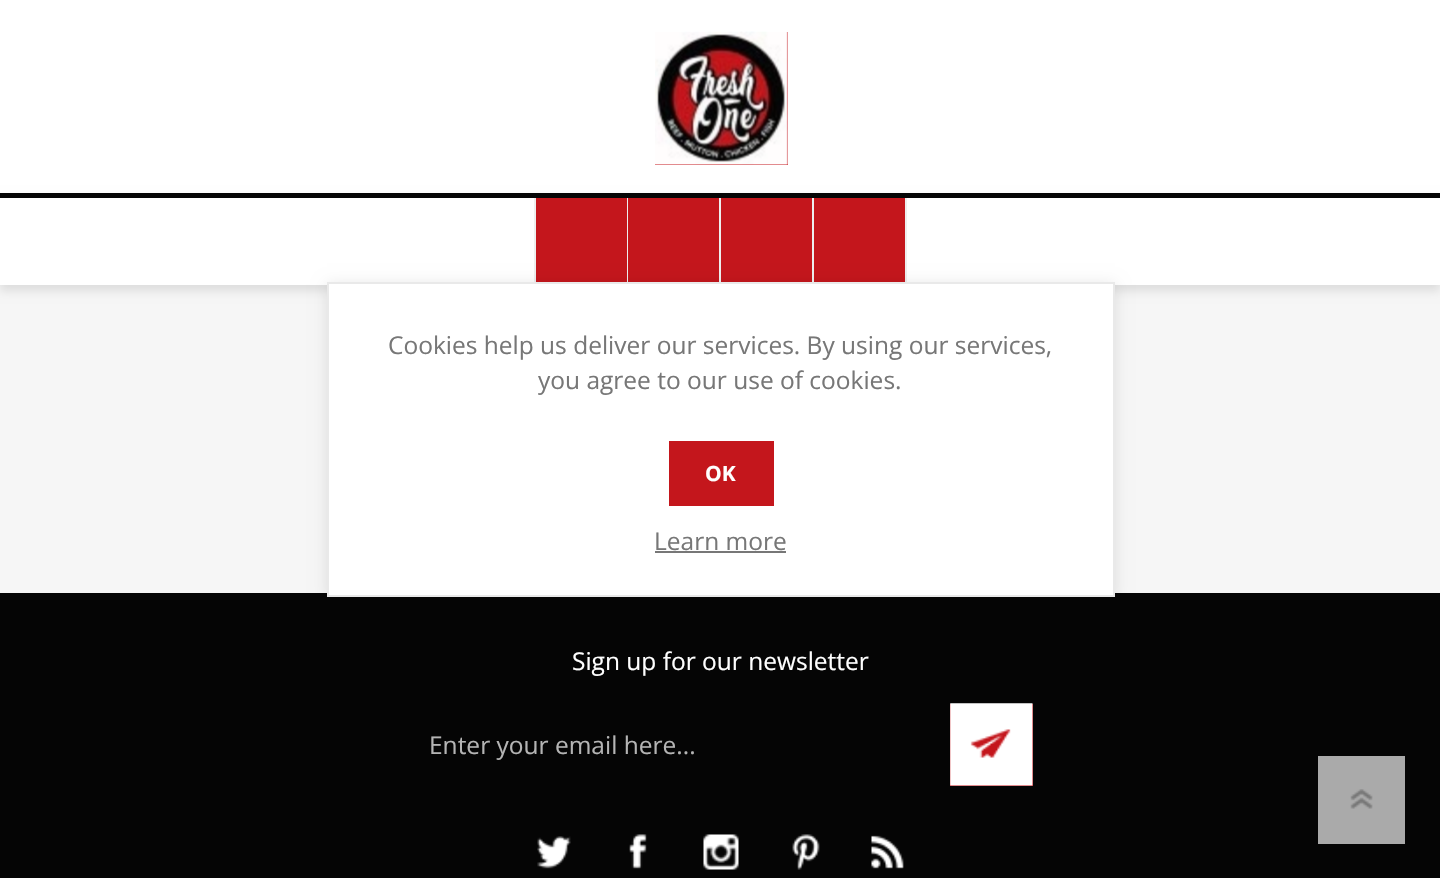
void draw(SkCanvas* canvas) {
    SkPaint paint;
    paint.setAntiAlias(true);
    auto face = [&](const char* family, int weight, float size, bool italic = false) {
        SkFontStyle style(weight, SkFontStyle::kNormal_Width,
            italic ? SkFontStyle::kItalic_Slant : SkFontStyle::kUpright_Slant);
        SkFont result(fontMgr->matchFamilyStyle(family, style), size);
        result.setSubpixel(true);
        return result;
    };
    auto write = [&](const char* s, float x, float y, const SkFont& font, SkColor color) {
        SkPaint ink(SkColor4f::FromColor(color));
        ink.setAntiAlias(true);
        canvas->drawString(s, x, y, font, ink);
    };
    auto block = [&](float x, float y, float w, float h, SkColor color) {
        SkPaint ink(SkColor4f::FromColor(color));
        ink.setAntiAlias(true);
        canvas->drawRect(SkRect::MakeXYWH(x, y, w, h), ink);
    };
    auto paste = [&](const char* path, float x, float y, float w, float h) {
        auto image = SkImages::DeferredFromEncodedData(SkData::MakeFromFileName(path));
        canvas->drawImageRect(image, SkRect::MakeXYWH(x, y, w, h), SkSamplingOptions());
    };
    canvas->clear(SkColorSetRGB(246, 246, 246));
    block(0, 0, 1440, 193, SK_ColorWHITE);
    block(655, 32, 133, 133, SkColorSetRGB(197, 24, 30));
    paste("pic1.png", 655, 31, 133, 134);
    paint.setColor(SkColorSetARGB(26, 0, 0, 0));
    paint.setMaskFilter(SkMaskFilter::MakeBlur(kNormal_SkBlurStyle, 4.5f));
    canvas->drawRect(SkRect::MakeXYWH(0, 198, 1440, 93), paint);
    paint.setMaskFilter(nullptr);
    block(0, 198, 1440, 87, SK_ColorWHITE);
    block(0, 193, 1440, 5, SkColorSetRGB(5, 5, 5));
    block(536, 198, 91, 84, SkColorSetRGB(196, 22, 28));
    block(627, 198, 1, 87, SkColorSetRGB(238, 238, 238));
    block(534, 198, 2, 87, SkColorSetRGB(238, 238, 238));
    block(628, 198, 91, 84, SkColorSetRGB(196, 22, 28));
    block(719, 198, 2, 87, SkColorSetRGB(238, 238, 238));
    block(721, 198, 91, 84, SkColorSetRGB(196, 22, 28));
    block(812, 198, 2, 87, SkColorSetRGB(238, 238, 238));
    block(814, 198, 91, 84, SkColorSetRGB(196, 22, 28));
    block(905, 198, 2, 87, SkColorSetRGB(238, 238, 238));
    block(0, 593, 1440, 285, SkColorSetRGB(5, 5, 5));
    paint.setMaskFilter(SkMaskFilter::MakeBlur(kNormal_SkBlurStyle, 7));
    canvas->drawRect(SkRect::MakeXYWH(327, 284, 788, 315), paint);
    paint.setMaskFilter(nullptr);
    paint.setColor(SK_ColorWHITE);
    canvas->drawRect(SkRect::MakeXYWH(328, 283, 786, 313), paint);
    paint.setStyle(SkPaint::kStroke_Style);
    paint.setStrokeWidth(2);
    paint.setColor(SkColorSetRGB(233, 233, 233));
    canvas->drawRect(SkRect::MakeXYWH(328, 283, 786, 313), paint);
    auto kFont1 = face("Open Sans", 400, 24.5f);
    write("Cookies help us deliver our services. By using our services,", 388, 354, kFont1, SkColorSetRGB(119, 119, 119));
    write("you agree to our use of cookies.", 538, 389, kFont1, SkColorSetRGB(119, 119, 119));
    block(669, 441, 105, 65, SkColorSetRGB(196, 22, 28));
    auto kFont2 = face("Open Sans", 700, 21);
    write("OK", 705, 481, kFont2, SK_ColorWHITE);
    write("Learn more", 654, 550, kFont1, SkColorSetRGB(119, 119, 119));
    block(655, 551, 131, 2, SkColorSetRGB(119, 119, 119));
    block(1318, 756, 87, 88, SkColorSetRGB(170, 170, 170));
    paste("pic2.png", 1350, 789, 23, 20);
    write("Sign up for our newsletter", 572, 670, kFont1, SK_ColorWHITE);
    write("Enter your email here...", 429, 754, kFont1, SkColorSetRGB(180, 180, 180));
    block(950, 704, 83, 82, SkColorSetRGB(196, 22, 28));
    paste("pic3.png", 950, 703, 83, 83);
    paste("pic4.png", 537, 836, 34, 33);
    paste("pic5.png", 629, 834, 18, 35);
    paste("pic6.png", 703, 834, 36, 36);
    paste("pic7.png", 792, 834, 28, 36);
    paste("pic8.png", 871, 835, 33, 34);
}
